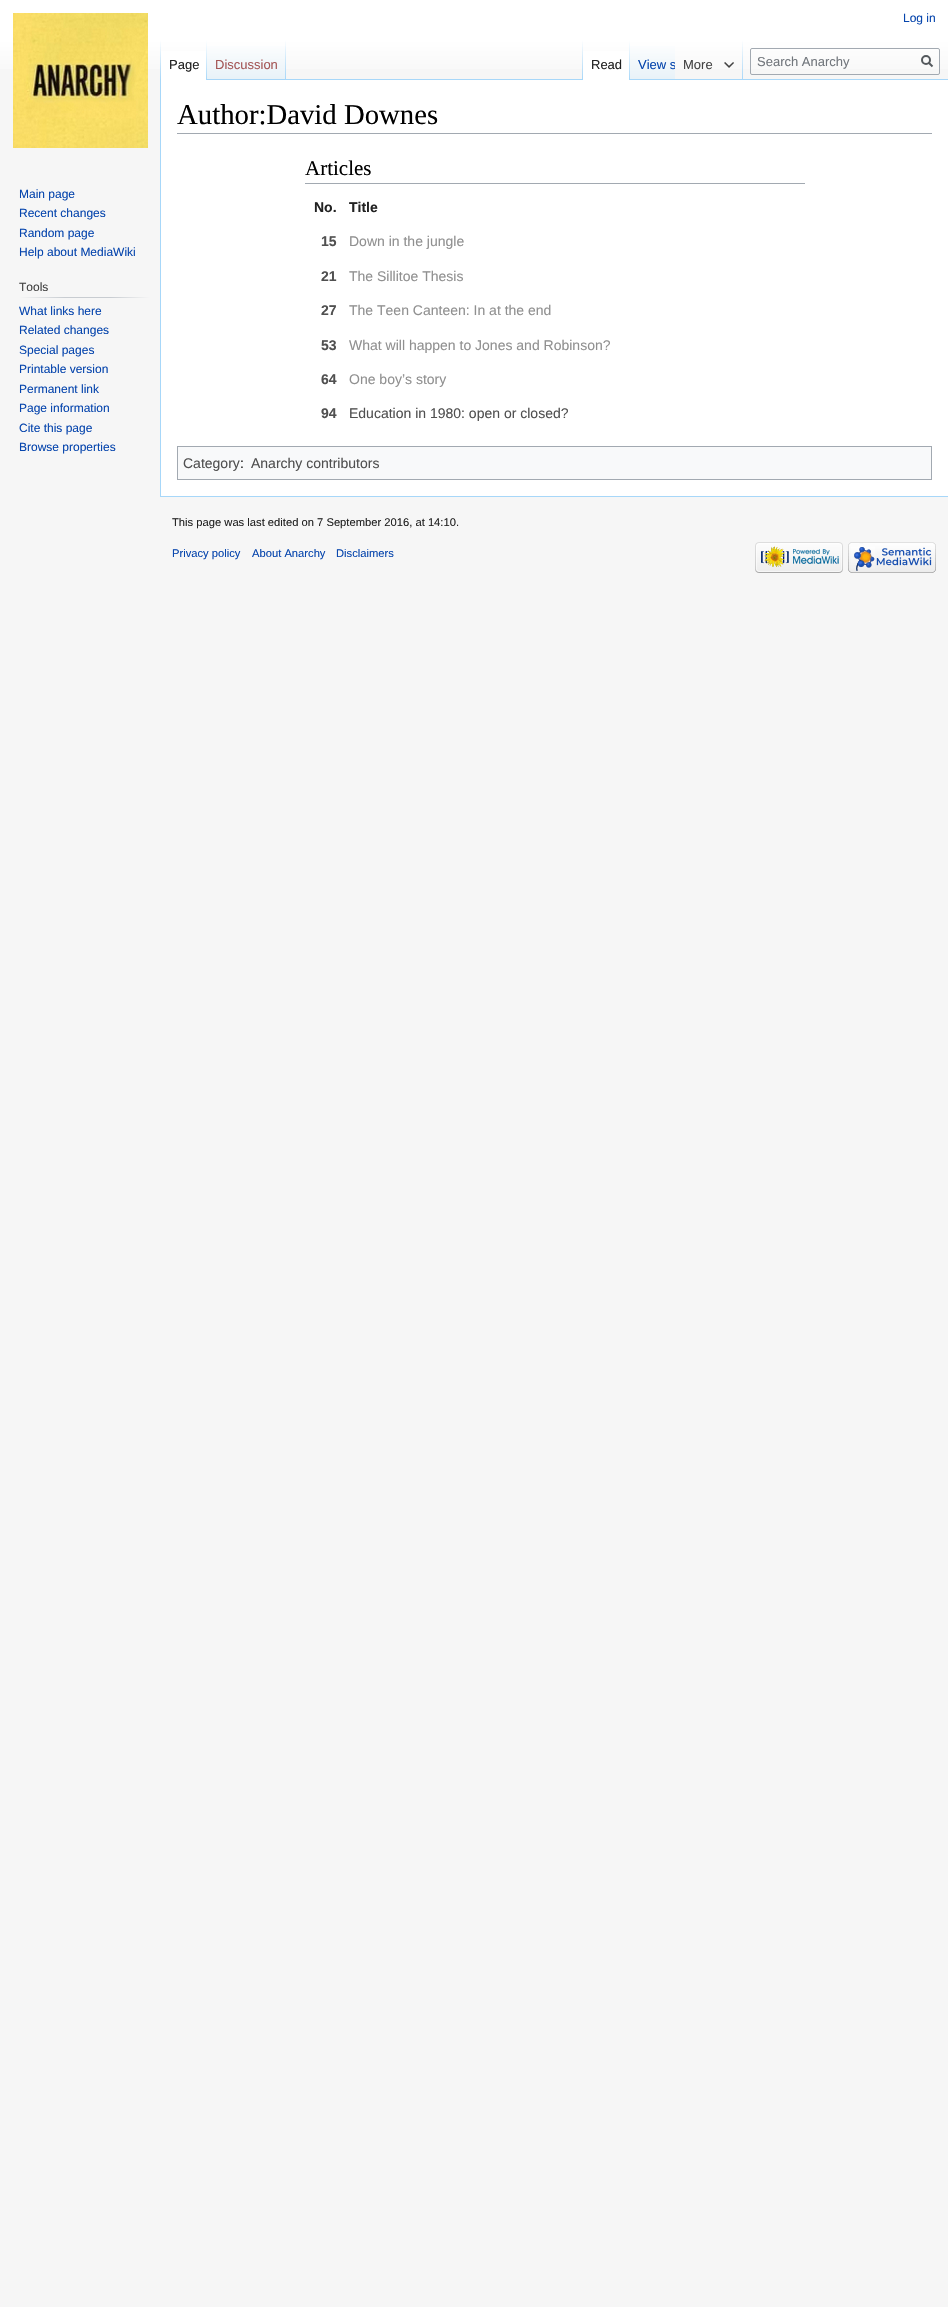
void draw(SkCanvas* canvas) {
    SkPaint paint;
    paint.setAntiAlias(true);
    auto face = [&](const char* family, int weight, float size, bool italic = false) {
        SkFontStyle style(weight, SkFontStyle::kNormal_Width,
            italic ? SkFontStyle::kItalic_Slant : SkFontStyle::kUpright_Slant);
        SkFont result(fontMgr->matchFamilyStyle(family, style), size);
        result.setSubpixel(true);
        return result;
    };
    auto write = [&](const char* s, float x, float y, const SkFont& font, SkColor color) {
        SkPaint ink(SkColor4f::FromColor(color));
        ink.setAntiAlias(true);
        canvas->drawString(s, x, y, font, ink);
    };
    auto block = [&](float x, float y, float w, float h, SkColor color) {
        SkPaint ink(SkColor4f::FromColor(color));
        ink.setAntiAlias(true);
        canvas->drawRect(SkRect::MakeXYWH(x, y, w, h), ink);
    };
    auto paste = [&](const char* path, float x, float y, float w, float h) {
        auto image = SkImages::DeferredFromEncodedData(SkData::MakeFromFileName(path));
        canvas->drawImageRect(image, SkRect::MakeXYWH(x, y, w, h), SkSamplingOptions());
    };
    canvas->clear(SkColorSetRGB(246, 246, 246));
    {
        const SkColor colors[] = {SK_ColorWHITE, SkColorSetRGB(246, 246, 246)};
        const float stops[] = {0.5f, 1};
        const SkPoint ends[] = {{474, 0}, {474, 80}};
        paint.setShader(SkGradientShader::MakeLinear(ends, colors, stops, 2, SkTileMode::kClamp));
        paint.setAlpha(255);
    }
    canvas->drawRect(SkRect::MakeXYWH(0, 0, 948, 69), paint);
    auto kFont1 = face("Liberation Sans", 400, 12);
    write("Log in", 903, 22, kFont1, SkColorSetRGB(6, 69, 173));
    block(160, 496, 788, 1, SkColorSetRGB(167, 215, 249));
    block(160, 79, 1, 418, SkColorSetRGB(167, 215, 249));
    {
        const SkColor colors[] = {SkColorSetARGB(0, 167, 215, 249), SkColorSetRGB(167, 215, 249)};
        const float stops[] = {0, 1};
        const SkPoint ends[] = {{161, 40}, {161, 80}};
        paint.setShader(SkGradientShader::MakeLinear(ends, colors, stops, 2, SkTileMode::kClamp));
        paint.setAlpha(255);
    }
    canvas->drawRect(SkRect::MakeXYWH(160, 40, 1, 40), paint);
    block(161, 51, 45, 29, SK_ColorWHITE);
    {
        const SkColor colors[] = {SK_ColorWHITE, SkColorSetRGB(167, 215, 249)};
        const float stops[] = {0, 1};
        const SkPoint ends[] = {{207, 40}, {207, 80}};
        paint.setShader(SkGradientShader::MakeLinear(ends, colors, stops, 2, SkTileMode::kClamp));
        paint.setAlpha(255);
    }
    canvas->drawRect(SkRect::MakeXYWH(206, 40, 1, 40), paint);
    auto kFont2 = face("Liberation Sans", 400, 13);
    write("Page", 169, 69, kFont2, SkColorSetRGB(34, 34, 34));
    {
        const SkColor colors[] = {SkColorSetRGB(119, 193, 246), SkColorSetRGB(232, 242, 248), SK_ColorWHITE};
        const float stops[] = {0, 0.03f, 1};
        const SkPoint ends[] = {{247, 80}, {247, 40}};
        paint.setShader(SkGradientShader::MakeLinear(ends, colors, stops, 3, SkTileMode::kClamp));
        paint.setAlpha(255);
    }
    canvas->drawRect(SkRect::MakeXYWH(207, 46, 79, 34), paint);
    {
        const SkColor colors[] = {SkColorSetARGB(0, 167, 215, 249), SkColorSetRGB(167, 215, 249)};
        const float stops[] = {0, 1};
        const SkPoint ends[] = {{286, 40}, {286, 80}};
        paint.setShader(SkGradientShader::MakeLinear(ends, colors, stops, 2, SkTileMode::kClamp));
        paint.setAlpha(255);
    }
    canvas->drawRect(SkRect::MakeXYWH(285, 40, 1, 40), paint);
    write("Discussion", 215, 69, kFont2, SkColorSetRGB(165, 88, 88));
    block(286, 79, 662, 1, SkColorSetRGB(167, 215, 249));
    {
        const SkColor colors[] = {SkColorSetARGB(0, 167, 215, 249), SkColorSetRGB(167, 215, 249)};
        const float stops[] = {0, 1};
        const SkPoint ends[] = {{583, 40}, {583, 80}};
        paint.setShader(SkGradientShader::MakeLinear(ends, colors, stops, 2, SkTileMode::kClamp));
        paint.setAlpha(255);
    }
    canvas->drawRect(SkRect::MakeXYWH(582, 40, 1, 40), paint);
    block(583, 51, 46, 29, SK_ColorWHITE);
    {
        const SkColor colors[] = {SK_ColorWHITE, SkColorSetRGB(167, 215, 249)};
        const float stops[] = {0, 1};
        const SkPoint ends[] = {{630, 40}, {630, 80}};
        paint.setShader(SkGradientShader::MakeLinear(ends, colors, stops, 2, SkTileMode::kClamp));
        paint.setAlpha(255);
    }
    canvas->drawRect(SkRect::MakeXYWH(629, 40, 1, 40), paint);
    write("Read", 591, 69, kFont2, SkColorSetRGB(34, 34, 34));
    {
        const SkColor colors[] = {SkColorSetRGB(119, 193, 246), SkColorSetRGB(232, 242, 248), SK_ColorWHITE};
        const float stops[] = {0, 0.03f, 1};
        const SkPoint ends[] = {{653, 80}, {653, 40}};
        paint.setShader(SkGradientShader::MakeLinear(ends, colors, stops, 3, SkTileMode::kClamp));
        paint.setAlpha(255);
    }
    canvas->drawRect(SkRect::MakeXYWH(630, 46, 45, 33), paint);
    canvas->save();
    canvas->clipRect(SkRect::MakeXYWH(630, 40, 45, 40));
    write("View s", 638, 69, kFont2, SkColorSetRGB(6, 69, 173));
    canvas->restore();
    {
        const SkColor colors[] = {SkColorSetARGB(0, 167, 215, 249), SkColorSetRGB(167, 215, 249)};
        const float stops[] = {0, 1};
        const SkPoint ends[] = {{743, 40}, {743, 80}};
        paint.setShader(SkGradientShader::MakeLinear(ends, colors, stops, 2, SkTileMode::kClamp));
        paint.setAlpha(255);
    }
    canvas->drawRect(SkRect::MakeXYWH(742, 40, 1, 40), paint);
    write("More", 683, 69, kFont2, SkColorSetRGB(68, 68, 68));
    paste("pic1.png", 724, 62, 10, 6);
    paint.setStyle(SkPaint::kStroke_Style);
    paint.setStrokeWidth(1);
    paint.setShader(nullptr);
    paint.setColor(SkColorSetRGB(162, 169, 177));
    canvas->drawRoundRect(SkRect::MakeXYWH(750.5f, 48.5f, 189, 26), 1.5f, 1.5f, paint);
    write("Search Anarchy", 757, 66, kFont2, SkColorSetRGB(114, 119, 125));
    paint.setStrokeWidth(2);
    paint.setColor(SkColorSetRGB(84, 89, 93));
    canvas->drawPath(SkPathBuilder().moveTo(932.5f, 66.5f).lineTo(928.5f, 62.5f).detach(), paint);
    canvas->drawCircle(926, 60, 4, paint);
    paste("pic2.png", 13, 13, 135, 135);
    write("Main page", 19, 198, kFont1, SkColorSetRGB(6, 69, 173));
    write("Recent changes", 19, 217, kFont1, SkColorSetRGB(6, 69, 173));
    write("Random page", 19, 237, kFont1, SkColorSetRGB(6, 69, 173));
    write("Help about MediaWiki", 19, 256, kFont1, SkColorSetRGB(6, 69, 173));
    write("Tools", 19, 291, kFont1, SkColorSetRGB(68, 68, 68));
    paint.setStyle(SkPaint::kFill_Style);
    {
        const SkColor colors[] = {SkColorSetRGB(246, 246, 246), SkColorSetRGB(200, 204, 209), SkColorSetRGB(200, 204, 209), SkColorSetRGB(246, 246, 246)};
        const float stops[] = {0, 0.35f, 0.7f, 1};
        const SkPoint ends[] = {{19, 298}, {150, 298}};
        paint.setShader(SkGradientShader::MakeLinear(ends, colors, stops, 4, SkTileMode::kClamp));
        paint.setAlpha(255);
    }
    canvas->drawRect(SkRect::MakeXYWH(19, 297, 131, 1), paint);
    write("What links here", 19, 315, kFont1, SkColorSetRGB(6, 69, 173));
    write("Related changes", 19, 334, kFont1, SkColorSetRGB(6, 69, 173));
    write("Special pages", 19, 354, kFont1, SkColorSetRGB(6, 69, 173));
    write("Printable version", 19, 373, kFont1, SkColorSetRGB(6, 69, 173));
    write("Permanent link", 19, 393, kFont1, SkColorSetRGB(6, 69, 173));
    write("Page information", 19, 412, kFont1, SkColorSetRGB(6, 69, 173));
    write("Cite this page", 19, 432, kFont1, SkColorSetRGB(6, 69, 173));
    write("Browse properties", 19, 451, kFont1, SkColorSetRGB(6, 69, 173));
    block(161, 80, 787, 416, SK_ColorWHITE);
    block(177, 133, 755, 1, SkColorSetRGB(162, 169, 177));
    auto kFont3 = face("Liberation Serif", 400, 28.75f);
    write("Author:David Downes", 177, 124, kFont3, SK_ColorBLACK);
    block(305, 183, 500, 1, SkColorSetRGB(162, 169, 177));
    auto kFont4 = face("Liberation Serif", 400, 21);
    write("Articles", 305, 175, kFont4, SK_ColorBLACK);
    auto kFont5 = face("Liberation Sans", 700, 14);
    write("No.", 314, 212, kFont5, SkColorSetRGB(34, 34, 34));
    write("Title", 349, 212, kFont5, SkColorSetRGB(34, 34, 34));
    write("15", 321, 246, kFont5, SkColorSetRGB(80, 80, 80));
    auto kFont6 = face("Liberation Sans", 400, 14);
    write("Down in the jungle", 349, 246, kFont6, SkColorSetRGB(144, 144, 144));
    write("21", 321, 281, kFont5, SkColorSetRGB(80, 80, 80));
    write("The Sillitoe Thesis", 349, 281, kFont6, SkColorSetRGB(144, 144, 144));
    write("27", 321, 315, kFont5, SkColorSetRGB(80, 80, 80));
    write("The Teen Canteen: In at the end", 349, 315, kFont6, SkColorSetRGB(144, 144, 144));
    write("53", 321, 350, kFont5, SkColorSetRGB(80, 80, 80));
    write("What will happen to Jones and Robinson?", 349, 350, kFont6, SkColorSetRGB(144, 144, 144));
    write("64", 321, 384, kFont5, SkColorSetRGB(80, 80, 80));
    write("One boy’s story", 349, 384, kFont6, SkColorSetRGB(144, 144, 144));
    write("94", 321, 418, kFont5, SkColorSetRGB(80, 80, 80));
    write("Education in 1980: open or closed?", 349, 418, kFont6, SkColorSetRGB(80, 80, 80));
    paint.setShader(nullptr);
    paint.setColor(SkColorSetRGB(248, 249, 250));
    canvas->drawRect(SkRect::MakeXYWH(177.5f, 446.5f, 754, 33), paint);
    paint.setStyle(SkPaint::kStroke_Style);
    paint.setStrokeWidth(1);
    paint.setColor(SkColorSetRGB(162, 169, 177));
    canvas->drawRect(SkRect::MakeXYWH(177.5f, 446.5f, 754, 33), paint);
    write("Category", 183, 468, kFont6, SkColorSetRGB(80, 80, 80));
    write(":", 240, 468, kFont6, SkColorSetRGB(34, 34, 34));
    write("Anarchy contributors", 251, 468, kFont6, SkColorSetRGB(80, 80, 80));
    auto kFont7 = face("Liberation Sans", 400, 11.2f);
    write("This page was last edited on 7 September 2016, at 14:10.", 172, 526, kFont7, SkColorSetRGB(34, 34, 34));
    write("Privacy policy", 172, 557, kFont7, SkColorSetRGB(6, 69, 173));
    write("About Anarchy", 252, 557, kFont7, SkColorSetRGB(6, 69, 173));
    write("Disclaimers", 336, 557, kFont7, SkColorSetRGB(6, 69, 173));
    paste("pic3.png", 755, 542, 88, 31);
    paste("pic4.png", 848, 542, 88, 31);
}
